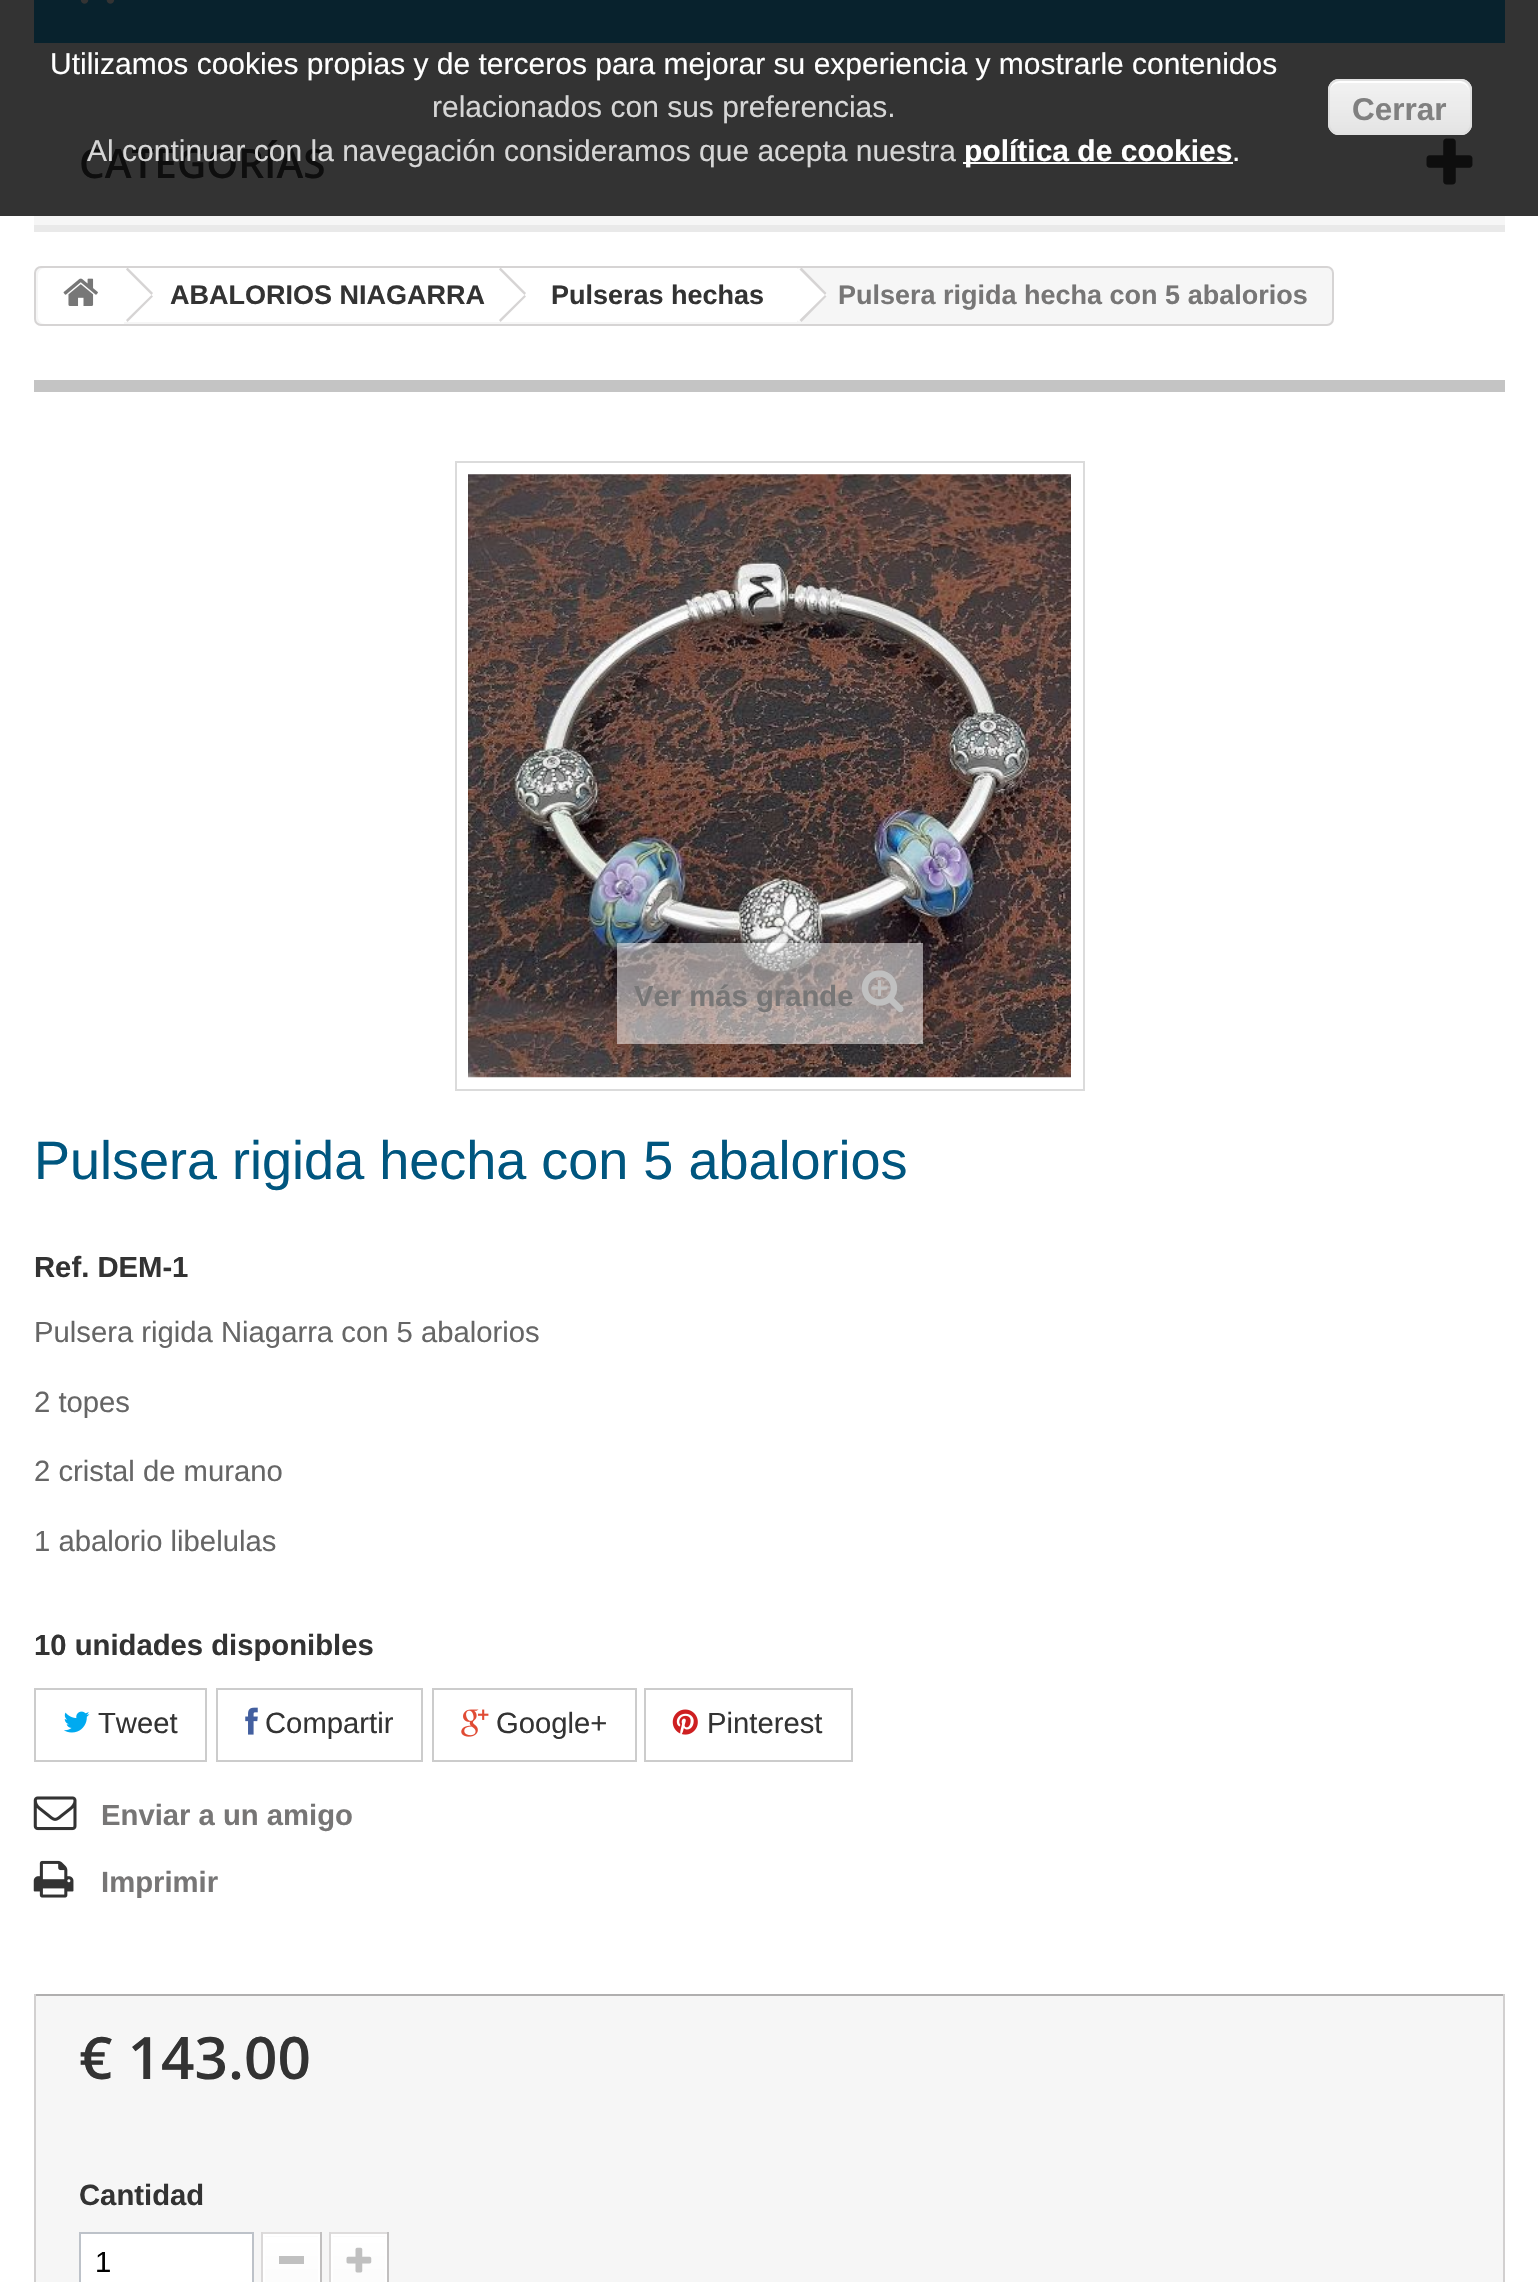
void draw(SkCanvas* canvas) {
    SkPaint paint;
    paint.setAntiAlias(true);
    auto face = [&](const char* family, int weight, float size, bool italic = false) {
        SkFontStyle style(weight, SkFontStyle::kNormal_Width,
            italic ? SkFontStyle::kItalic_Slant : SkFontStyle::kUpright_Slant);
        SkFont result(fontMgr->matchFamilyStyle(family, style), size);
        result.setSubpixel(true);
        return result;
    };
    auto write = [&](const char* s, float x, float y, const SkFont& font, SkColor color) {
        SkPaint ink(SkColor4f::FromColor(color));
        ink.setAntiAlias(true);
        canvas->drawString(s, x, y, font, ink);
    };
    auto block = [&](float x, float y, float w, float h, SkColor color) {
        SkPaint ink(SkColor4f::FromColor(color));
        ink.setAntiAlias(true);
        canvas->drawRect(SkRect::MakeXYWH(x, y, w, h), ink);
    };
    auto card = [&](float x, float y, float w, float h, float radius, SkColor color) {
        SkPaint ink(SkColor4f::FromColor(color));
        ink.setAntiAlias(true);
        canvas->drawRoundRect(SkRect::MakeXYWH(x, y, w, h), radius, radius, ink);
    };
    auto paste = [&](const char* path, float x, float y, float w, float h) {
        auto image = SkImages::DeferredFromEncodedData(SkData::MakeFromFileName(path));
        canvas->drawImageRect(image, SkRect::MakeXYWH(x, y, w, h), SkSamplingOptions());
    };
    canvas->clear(SK_ColorWHITE);
    block(0, 0, 1538, 216, SkColorSetRGB(51, 51, 51));
    auto kFont1 = face("Liberation Sans", 400, 30);
    write("Utilizamos cookies propias y de terceros para mejorar su experiencia y mostrarle contenidos", 50, 74, kFont1, SK_ColorWHITE);
    write("relacionados con sus preferencias.", 432, 117, kFont1, SkColorSetRGB(214, 214, 214));
    auto kFont2 = face("Open Sans", 600, 40.5f);
    write("CATEGORÍAS", 79, 178, kFont2, SkColorSetRGB(14, 14, 14));
    write("Al continuar con la navegación consideramos que acepta nuestra", 87, 161, kFont1, SkColorSetRGB(214, 214, 214));
    block(963, 162, 270, 2, SkColorSetRGB(253, 253, 253));
    auto kFont3 = face("Liberation Sans", 700, 30);
    write("política de cookies", 964, 161, kFont3, SK_ColorWHITE);
    write(".", 1232, 161, kFont1, SK_ColorWHITE);
    card(1328, 79, 144, 56, 11, SkColorSetRGB(209, 209, 209));
    canvas->save();
    canvas->clipPath(SkPathBuilder().moveTo(1339, 79).lineTo(1461, 79).cubicTo(1467, 79, 1472, 84, 1472, 90).lineTo(1472, 124).cubicTo(1472, 130, 1467, 135, 1461, 135).lineTo(1339, 135).cubicTo(1333, 135, 1328, 130, 1328, 124).lineTo(1328, 90).cubicTo(1328, 84, 1333, 79, 1339, 79).close().detach(), true);
    {
        const SkColor colors[] = {SkColorSetRGB(250, 250, 250), SkColorSetRGB(237, 237, 237)};
        const float stops[] = {0.05f, 1};
        const SkPoint ends[] = {{1330, 29}, {1330, 81}};
        paint.setShader(SkGradientShader::MakeLinear(ends, colors, stops, 2, SkTileMode::kClamp));
        paint.setAlpha(255);
    }
    canvas->drawRect(SkRect::MakeXYWH(1328, 79, 144, 2), paint);
    {
        const SkColor colors[] = {SkColorSetARGB(204, 249, 249, 249), SkColorSetARGB(204, 233, 233, 233)};
        const float stops[] = {0.05f, 1};
        const SkPoint ends[] = {{1330, 81}, {1330, 133}};
        paint.setShader(SkGradientShader::MakeLinear(ends, colors, stops, 2, SkTileMode::kClamp));
        paint.setAlpha(255);
    }
    canvas->drawRect(SkRect::MakeXYWH(1328, 81, 144, 52), paint);
    {
        const SkColor colors[] = {SkColorSetRGB(248, 248, 248), SkColorSetRGB(236, 236, 236)};
        const float stops[] = {0.05f, 1};
        const SkPoint ends[] = {{1330, 133}, {1330, 185}};
        paint.setShader(SkGradientShader::MakeLinear(ends, colors, stops, 2, SkTileMode::kClamp));
        paint.setAlpha(255);
    }
    canvas->drawRect(SkRect::MakeXYWH(1328, 133, 144, 2), paint);
    canvas->restore();
    paint.setShader(nullptr);
    paint.setColor(SK_ColorWHITE);
    canvas->drawPath(SkPathBuilder().moveTo(1339, 83).lineTo(1460, 83).cubicTo(1465, 83, 1469, 87, 1469, 92).cubicTo(1469, 76, 1451, 81, 1440, 81).lineTo(1359, 81).cubicTo(1348, 81, 1330, 76, 1330, 92).cubicTo(1330, 87, 1334, 83, 1339, 83).close().detach(), paint);
    paint.setStyle(SkPaint::kStroke_Style);
    paint.setStrokeWidth(2);
    paint.setColor(SkColorSetARGB(204, 220, 220, 220));
    canvas->drawRoundRect(SkRect::MakeXYWH(1329, 80, 142, 54), 10, 10, paint);
    auto kFont4 = face("Liberation Sans", 700, 31.5f);
    write("Cerrar", 1352, 120, kFont4, SkColorSetRGB(128, 128, 128));
    block(34, 0, 1471, 43, SkColorSetRGB(8, 34, 45));
    paste("pic1.png", 80, 0, 35, 4);
    block(34, 216, 1471, 9, SkColorSetRGB(246, 246, 246));
    block(34, 225, 1471, 7, SkColorSetRGB(233, 233, 233));
    paste("pic2.png", 1426, 138, 47, 47);
    paint.setStyle(SkPaint::kFill_Style);
    paint.setColor(SkColorSetRGB(246, 246, 246));
    canvas->drawRoundRect(SkRect::MakeXYWH(35, 267, 1298, 58), 6, 6, paint);
    paint.setStyle(SkPaint::kStroke_Style);
    paint.setColor(SkColorSetRGB(214, 212, 212));
    canvas->drawRoundRect(SkRect::MakeXYWH(35, 267, 1298, 58), 6, 6, paint);
    paint.setStyle(SkPaint::kFill_Style);
    paint.setColor(SK_ColorWHITE);
    canvas->drawPath(SkPathBuilder().moveTo(45, 268).lineTo(124, 268).lineTo(124, 324).lineTo(45, 324).cubicTo(41, 324, 38, 321, 38, 317).lineTo(38, 275).cubicTo(38, 271, 41, 268, 45, 268).close().detach(), paint);
    paste("pic3.png", 63, 278, 35, 28);
    block(124, 268, 378, 54, SK_ColorWHITE);
    paint.setColor(SkColorSetRGB(214, 212, 212));
    canvas->drawPath(SkPathBuilder().moveTo(127.5f, 267.5f).lineTo(153, 293).lineTo(151.5f, 295).lineTo(126, 269.5f).close().moveTo(151.5f, 295).lineTo(153, 296.5f).lineTo(127.5f, 322).lineTo(126, 320).close().detach(), paint);
    auto kFont5 = face("Liberation Sans", 700, 27);
    write("ABALORIOS NIAGARRA", 170, 304, kFont5, SkColorSetRGB(51, 51, 51));
    paint.setColor(SK_ColorWHITE);
    canvas->drawPath(SkPathBuilder().moveTo(524, 269).lineTo(547, 292).cubicTo(549, 293, 549, 296, 547, 298).lineTo(524, 320).cubicTo(523, 322, 520, 322, 518, 320).lineTo(496, 298).cubicTo(494, 296, 494, 293, 496, 292).lineTo(518, 269).cubicTo(520, 268, 523, 268, 524, 269).close().detach(), paint);
    block(502, 268, 295, 54, SK_ColorWHITE);
    paint.setColor(SkColorSetRGB(214, 212, 212));
    canvas->drawPath(SkPathBuilder().moveTo(500.5f, 267.5f).lineTo(526, 293).lineTo(524.5f, 295).lineTo(499, 269.5f).close().moveTo(524.5f, 295).lineTo(526, 296.5f).lineTo(500.5f, 322).lineTo(499, 320).close().detach(), paint);
    write("Pulseras hechas", 551, 304, kFont5, SkColorSetRGB(51, 51, 51));
    paint.setColor(SK_ColorWHITE);
    canvas->drawPath(SkPathBuilder().moveTo(803, 269).lineTo(825, 292).cubicTo(827, 293, 827, 296, 825, 298).lineTo(803, 320).cubicTo(801, 322, 798, 322, 797, 320).lineTo(774, 298).cubicTo(772, 296, 772, 293, 774, 292).lineTo(797, 269).cubicTo(798, 268, 801, 268, 803, 269).close().detach(), paint);
    paint.setColor(SkColorSetRGB(214, 212, 212));
    canvas->drawPath(SkPathBuilder().moveTo(801.5f, 267.5f).lineTo(826.5f, 293).lineTo(825, 295).lineTo(799.5f, 269.5f).close().moveTo(825, 295).lineTo(826.5f, 296.5f).lineTo(801.5f, 322).lineTo(799.5f, 320).close().detach(), paint);
    write("Pulsera rigida hecha con 5 abalorios", 838, 304, kFont5, SkColorSetRGB(119, 118, 118));
    block(34, 380, 1471, 12, SkColorSetRGB(196, 196, 196));
    paint.setStyle(SkPaint::kStroke_Style);
    paint.setColor(SkColorSetRGB(219, 219, 219));
    canvas->drawRect(SkRect::MakeXYWH(456, 462, 628, 628), paint);
    block(468, 1077, 603, 1, SkColorSetRGB(251, 251, 251));
    paste("pic4.png", 468, 474, 603, 604);
    canvas->save();
    canvas->clipPath(SkPathBuilder(SkPathFillType::kEvenOdd).moveTo(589, 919).lineTo(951, 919).lineTo(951, 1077).lineTo(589, 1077).close().moveTo(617, 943).lineTo(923, 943).lineTo(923, 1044).lineTo(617, 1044).close().detach(), true);
    paint.setStyle(SkPaint::kFill_Style);
    paint.setColor(SkColorSetARGB(41, 0, 0, 0));
    paint.setMaskFilter(SkMaskFilter::MakeBlur(kNormal_SkBlurStyle, 9));
    canvas->drawRect(SkRect::MakeXYWH(617, 947, 306, 102), paint);
    paint.setMaskFilter(nullptr);
    canvas->restore();
    block(617, 943, 306, 101, SkColorSetARGB(128, 255, 255, 255));
    auto kFont6 = face("Liberation Sans", 700, 29.25f);
    write("Ver más grande", 634, 1006, kFont6, SkColorSetRGB(119, 118, 118));
    paste("pic5.png", 861, 970, 43, 43);
    auto kFont7 = face("Liberation Sans", 400, 54);
    write("Pulsera rigida hecha con 5 abalorios", 34, 1179, kFont7, SkColorSetRGB(0, 86, 127));
    write("Ref. DEM-1", 34, 1277, kFont6, SkColorSetRGB(51, 51, 51));
    auto kFont8 = face("Liberation Sans", 400, 29.25f);
    write("Pulsera rigida Niagarra con 5 abalorios", 34, 1342, kFont8, SkColorSetRGB(102, 102, 102));
    write("2 topes", 34, 1412, kFont8, SkColorSetRGB(102, 102, 102));
    write("2 cristal de murano", 34, 1481, kFont8, SkColorSetRGB(102, 102, 102));
    write("1 abalorio libelulas", 34, 1551, kFont8, SkColorSetRGB(102, 102, 102));
    write("10 unidades disponibles", 34, 1655, kFont6, SkColorSetRGB(51, 51, 51));
    paint.setStyle(SkPaint::kStroke_Style);
    paint.setColor(SkColorSetRGB(204, 204, 204));
    canvas->drawRect(SkRect::MakeXYWH(35, 1689, 171, 72), paint);
    paste("pic6.png", 64, 1711, 26, 22);
    write("Tweet", 98, 1733, kFont8, SkColorSetRGB(51, 51, 51));
    canvas->drawRect(SkRect::MakeXYWH(217, 1689, 205, 72), paint);
    paste("pic7.png", 245, 1707, 13, 28);
    write("Compartir", 265, 1733, kFont8, SkColorSetRGB(51, 51, 51));
    canvas->drawRect(SkRect::MakeXYWH(433, 1689, 203, 72), paint);
    paste("pic8.png", 461, 1709, 28, 28);
    write("Google+", 496, 1733, kFont8, SkColorSetRGB(51, 51, 51));
    canvas->drawRect(SkRect::MakeXYWH(645, 1689, 207, 72), paint);
    paste("pic9.png", 672, 1709, 26, 26);
    write("Pinterest", 707, 1733, kFont8, SkColorSetRGB(51, 51, 51));
    paste("pic10.png", 33, 1796, 44, 35);
    write("Enviar a un amigo", 101, 1825, kFont6, SkColorSetRGB(119, 118, 118));
    paste("pic11.png", 33, 1860, 41, 38);
    write("Imprimir", 101, 1892, kFont6, SkColorSetRGB(119, 118, 118));
    block(36, 1996, 1467, 286, SkColorSetRGB(246, 246, 246));
    block(34, 1994, 1471, 2, SkColorSetRGB(176, 175, 175));
    block(1503, 1994, 2, 288, SkColorSetRGB(210, 208, 208));
    block(34, 1994, 2, 288, SkColorSetRGB(210, 208, 208));
    auto kFont9 = face("Open Sans", 600, 58.5f);
    write("€ 143.00", 79, 2079, kFont9, SkColorSetRGB(51, 51, 51));
    write("Cantidad", 79, 2205, kFont6, SkColorSetRGB(51, 51, 51));
    paint.setStyle(SkPaint::kFill_Style);
    paint.setColor(SK_ColorWHITE);
    canvas->drawRect(SkRect::MakeXYWH(80, 2233, 173, 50), paint);
    paint.setStyle(SkPaint::kStroke_Style);
    paint.setColor(SkColorSetRGB(189, 194, 201));
    canvas->drawRect(SkRect::MakeXYWH(80, 2233, 173, 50), paint);
    write("1", 95, 2272, kFont8, SK_ColorBLACK);
    block(261, 2232, 61, 2, SkColorSetRGB(222, 220, 220));
    block(320, 2232, 2, 50, SkColorSetRGB(193, 191, 191));
    block(261, 2232, 2, 50, SkColorSetRGB(218, 216, 216));
    paint.setStyle(SkPaint::kFill_Style);
    {
        const SkColor colors[] = {SK_ColorWHITE, SkColorSetRGB(251, 251, 251)};
        const float stops[] = {0, 1};
        const SkPoint ends[] = {{291, 2185}, {291, 2237}};
        paint.setShader(SkGradientShader::MakeLinear(ends, colors, stops, 2, SkTileMode::kClamp));
        paint.setAlpha(255);
    }
    canvas->drawRect(SkRect::MakeXYWH(263, 2236, 57, 1), paint);
    {
        const SkColor colors[] = {SK_ColorWHITE, SkColorSetRGB(251, 251, 251)};
        const float stops[] = {0, 1};
        const SkPoint ends[] = {{291, 2237}, {291, 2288}};
        paint.setShader(SkGradientShader::MakeLinear(ends, colors, stops, 2, SkTileMode::kClamp));
        paint.setAlpha(255);
    }
    canvas->drawRect(SkRect::MakeXYWH(265, 2237, 53, 45), paint);
    paint.setStyle(SkPaint::kStroke_Style);
    paint.setShader(nullptr);
    paint.setColor(SK_ColorWHITE);
    canvas->drawRect(SkRect::MakeXYWH(264, 2235, 55, 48), paint);
    block(279, 2256, 25, 8, SkColorSetRGB(192, 192, 192));
    block(329, 2232, 60, 2, SkColorSetRGB(222, 220, 220));
    block(387, 2232, 2, 50, SkColorSetRGB(193, 191, 191));
    block(329, 2232, 2, 50, SkColorSetRGB(218, 216, 216));
    paint.setStyle(SkPaint::kFill_Style);
    {
        const SkColor colors[] = {SK_ColorWHITE, SkColorSetRGB(251, 251, 251)};
        const float stops[] = {0, 1};
        const SkPoint ends[] = {{359, 2185}, {359, 2237}};
        paint.setShader(SkGradientShader::MakeLinear(ends, colors, stops, 2, SkTileMode::kClamp));
        paint.setAlpha(255);
    }
    canvas->drawRect(SkRect::MakeXYWH(331, 2236, 56, 1), paint);
    {
        const SkColor colors[] = {SK_ColorWHITE, SkColorSetRGB(251, 251, 251)};
        const float stops[] = {0, 1};
        const SkPoint ends[] = {{359, 2237}, {359, 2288}};
        paint.setShader(SkGradientShader::MakeLinear(ends, colors, stops, 2, SkTileMode::kClamp));
        paint.setAlpha(255);
    }
    canvas->drawRect(SkRect::MakeXYWH(333, 2237, 52, 45), paint);
    paint.setStyle(SkPaint::kStroke_Style);
    paint.setShader(nullptr);
    paint.setColor(SK_ColorWHITE);
    canvas->drawRect(SkRect::MakeXYWH(332, 2235, 54, 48), paint);
    paste("pic12.png", 346, 2247, 26, 26);
}
